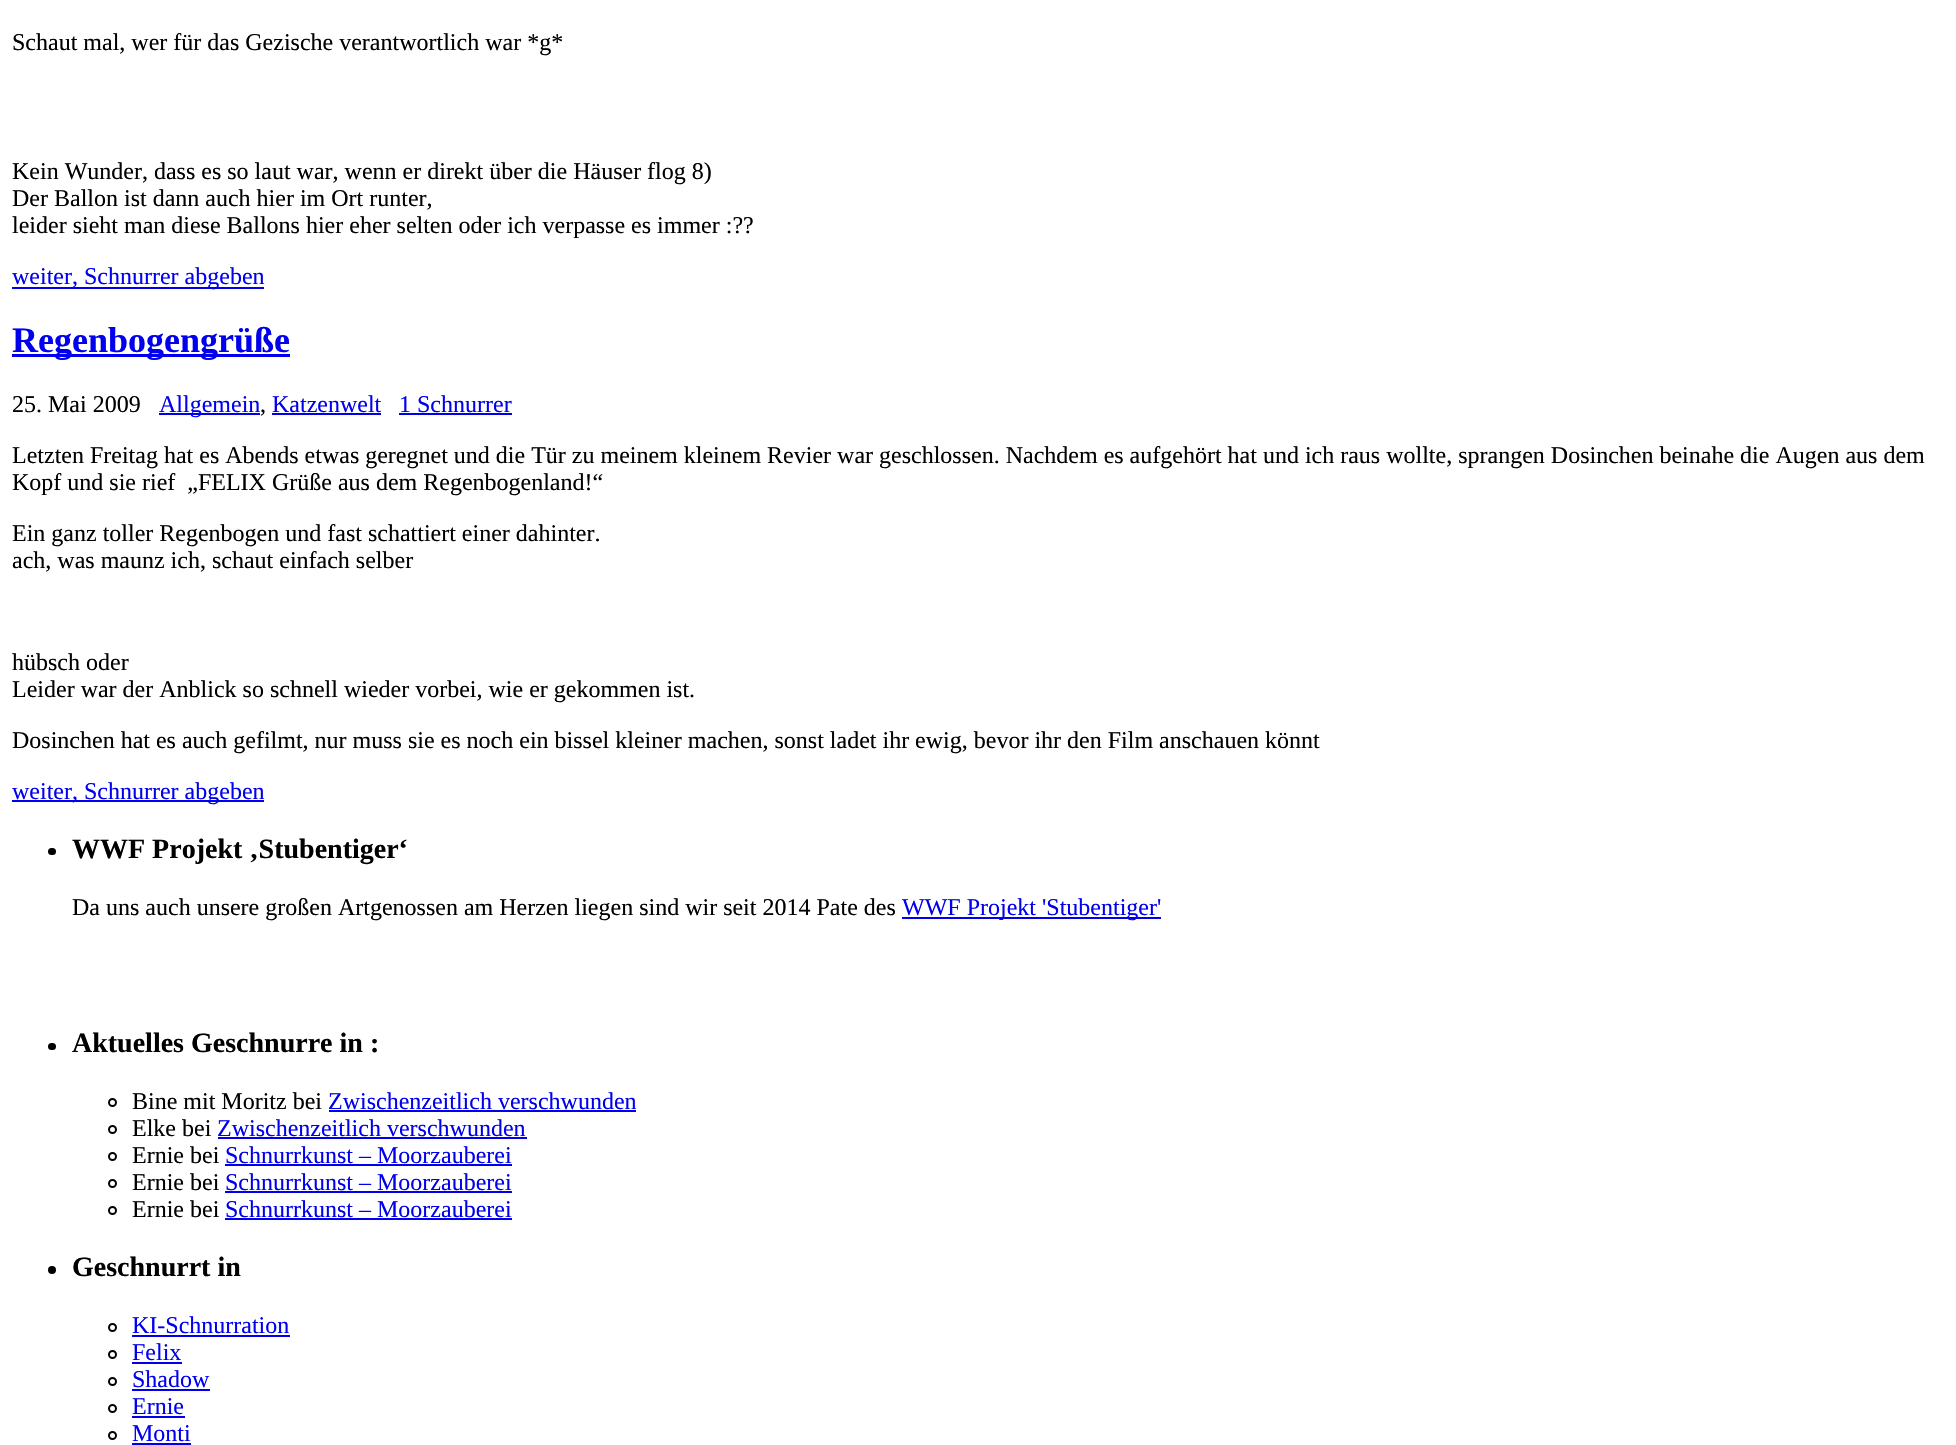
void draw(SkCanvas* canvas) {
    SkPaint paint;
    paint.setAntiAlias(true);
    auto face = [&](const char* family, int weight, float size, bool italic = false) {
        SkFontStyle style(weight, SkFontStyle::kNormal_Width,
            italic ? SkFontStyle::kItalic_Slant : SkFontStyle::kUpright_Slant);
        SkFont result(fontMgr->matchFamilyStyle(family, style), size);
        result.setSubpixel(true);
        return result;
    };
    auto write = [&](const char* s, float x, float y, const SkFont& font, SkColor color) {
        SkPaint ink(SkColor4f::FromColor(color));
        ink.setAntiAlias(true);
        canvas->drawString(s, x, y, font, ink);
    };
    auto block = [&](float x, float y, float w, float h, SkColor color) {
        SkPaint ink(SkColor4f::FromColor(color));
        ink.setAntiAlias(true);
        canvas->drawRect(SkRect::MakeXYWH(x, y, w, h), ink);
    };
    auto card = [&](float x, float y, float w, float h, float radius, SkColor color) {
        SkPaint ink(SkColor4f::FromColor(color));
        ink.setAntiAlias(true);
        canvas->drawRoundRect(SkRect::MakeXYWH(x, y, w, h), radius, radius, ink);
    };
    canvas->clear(SK_ColorWHITE);
    auto kFont1 = face("Liberation Serif", 400, 24);
    write("Schaut mal, wer für das Gezische verantwortlich war *g*", 12, 50, kFont1, SK_ColorBLACK);
    write("Kein Wunder, dass es so laut war, wenn er direkt über die Häuser flog 8)", 12, 179, kFont1, SK_ColorBLACK);
    write("Der Ballon ist dann auch hier im Ort runter,", 12, 206, kFont1, SK_ColorBLACK);
    write("leider sieht man diese Ballons hier eher selten oder ich verpasse es immer :?\077", 12, 233, kFont1, SK_ColorBLACK);
    block(12, 287, 252, 2, SkColorSetRGB(0, 0, 238));
    write("weiter, Schnurrer abgeben", 12, 284, kFont1, SkColorSetRGB(0, 0, 238));
    block(12, 354, 278, 3, SkColorSetRGB(0, 0, 238));
    auto kFont2 = face("Liberation Serif", 700, 36);
    write("Regenbogengrüße", 12, 352, kFont2, SkColorSetRGB(0, 0, 238));
    write("25. Mai 2009", 12, 412, kFont1, SK_ColorBLACK);
    block(159, 413, 101, 2, SkColorSetRGB(0, 0, 238));
    write("Allgemein", 159, 412, kFont1, SkColorSetRGB(0, 0, 238));
    write(",", 260, 412, kFont1, SK_ColorBLACK);
    block(272, 413, 109, 2, SkColorSetRGB(0, 0, 238));
    write("Katzenwelt", 272, 412, kFont1, SkColorSetRGB(0, 0, 238));
    write("1 Schnurrer", 399, 412, kFont1, SkColorSetRGB(0, 0, 238));
    block(399, 413, 113, 2, SkColorSetRGB(0, 0, 238));
    write("Letzten Freitag hat es Abends etwas geregnet und die Tür zu meinem kleinem Revier war geschlossen. Nachdem es aufgehört hat und ich raus wollte, sprangen Dosinchen beinahe die Augen aus dem", 12, 463, kFont1, SK_ColorBLACK);
    write("Kopf und sie rief  „FELIX Grüße aus dem Regenbogenland!“", 12, 490, kFont1, SK_ColorBLACK);
    write("Ein ganz toller Regenbogen und fast schattiert einer dahinter.", 12, 541, kFont1, SK_ColorBLACK);
    write("ach, was maunz ich, schaut einfach selber", 12, 568, kFont1, SK_ColorBLACK);
    write("hübsch oder", 12, 670, kFont1, SK_ColorBLACK);
    write("Leider war der Anblick so schnell wieder vorbei, wie er gekommen ist.", 12, 697, kFont1, SK_ColorBLACK);
    write("Dosinchen hat es auch gefilmt, nur muss sie es noch ein bissel kleiner machen, sonst ladet ihr ewig, bevor ihr den Film anschauen könnt", 12, 748, kFont1, SK_ColorBLACK);
    block(12, 800, 252, 2, SkColorSetRGB(0, 0, 238));
    write("weiter, Schnurrer abgeben", 12, 799, kFont1, SkColorSetRGB(0, 0, 238));
    card(48, 848, 8, 7, 3.5f, SK_ColorBLACK);
    auto kFont3 = face("Liberation Serif", 700, 28);
    write("WWF Projekt ‚Stubentiger‘", 72, 858, kFont3, SK_ColorBLACK);
    write("Da uns auch unsere großen Artgenossen am Herzen liegen sind wir seit 2014 Pate des", 72, 915, kFont1, SK_ColorBLACK);
    block(902, 917, 259, 2, SkColorSetRGB(0, 0, 238));
    write("WWF Projekt 'Stubentiger'", 902, 915, kFont1, SkColorSetRGB(0, 0, 238));
    card(48, 1043, 8, 7, 3.5f, SK_ColorBLACK);
    write("Aktuelles Geschnurre in :", 72, 1052, kFont3, SK_ColorBLACK);
    paint.setStyle(SkPaint::kStroke_Style);
    paint.setStrokeWidth(2);
    paint.setColor(SK_ColorBLACK);
    canvas->drawCircle(112.5f, 1102.5f, 3.5f, paint);
    write("Bine mit Moritz bei", 132, 1109, kFont1, SK_ColorBLACK);
    write("Zwischenzeitlich verschwunden", 328, 1109, kFont1, SkColorSetRGB(0, 0, 238));
    block(329, 1110, 307, 2, SkColorSetRGB(0, 0, 238));
    canvas->drawCircle(112.5f, 1129.5f, 3.5f, paint);
    write("Elke bei", 132, 1136, kFont1, SK_ColorBLACK);
    write("Zwischenzeitlich verschwunden", 217, 1136, kFont1, SkColorSetRGB(0, 0, 238));
    block(218, 1137, 309, 2, SkColorSetRGB(0, 0, 238));
    canvas->drawCircle(112.5f, 1156.5f, 3.5f, paint);
    write("Ernie bei", 132, 1163, kFont1, SK_ColorBLACK);
    write("Schnurrkunst – Moorzauberei", 225, 1163, kFont1, SkColorSetRGB(0, 0, 238));
    block(225, 1164, 287, 2, SkColorSetRGB(0, 0, 238));
    canvas->drawCircle(112.5f, 1183.5f, 3.5f, paint);
    write("Ernie bei", 132, 1190, kFont1, SK_ColorBLACK);
    write("Schnurrkunst – Moorzauberei", 225, 1190, kFont1, SkColorSetRGB(0, 0, 238));
    block(225, 1191, 287, 2, SkColorSetRGB(0, 0, 238));
    canvas->drawCircle(112.5f, 1210.5f, 3.5f, paint);
    write("Ernie bei", 132, 1217, kFont1, SK_ColorBLACK);
    write("Schnurrkunst – Moorzauberei", 225, 1217, kFont1, SkColorSetRGB(0, 0, 238));
    block(225, 1218, 287, 2, SkColorSetRGB(0, 0, 238));
    paint.setStyle(SkPaint::kFill_Style);
    canvas->drawCircle(52, 1270, 4, paint);
    write("Geschnurrt in", 72, 1276, kFont3, SK_ColorBLACK);
    paint.setStyle(SkPaint::kStroke_Style);
    canvas->drawCircle(112.5f, 1327.5f, 3.5f, paint);
    write("KI-Schnurration", 132, 1333, kFont1, SkColorSetRGB(0, 0, 238));
    block(132, 1335, 158, 2, SkColorSetRGB(0, 0, 238));
    canvas->drawCircle(112.5f, 1354.5f, 3.5f, paint);
    write("Felix", 132, 1360, kFont1, SkColorSetRGB(0, 0, 238));
    block(132, 1362, 50, 2, SkColorSetRGB(0, 0, 238));
    canvas->drawCircle(112.5f, 1381.5f, 3.5f, paint);
    write("Shadow", 132, 1387, kFont1, SkColorSetRGB(0, 0, 238));
    block(132, 1389, 78, 2, SkColorSetRGB(0, 0, 238));
    canvas->drawCircle(112.5f, 1408.5f, 3.5f, paint);
    write("Ernie", 132, 1414, kFont1, SkColorSetRGB(0, 0, 238));
    block(132, 1416, 53, 2, SkColorSetRGB(0, 0, 238));
    canvas->drawCircle(112.5f, 1435.5f, 3.5f, paint);
    write("Monti", 132, 1441, kFont1, SkColorSetRGB(0, 0, 238));
    block(132, 1443, 59, 2, SkColorSetRGB(0, 0, 238));
}
